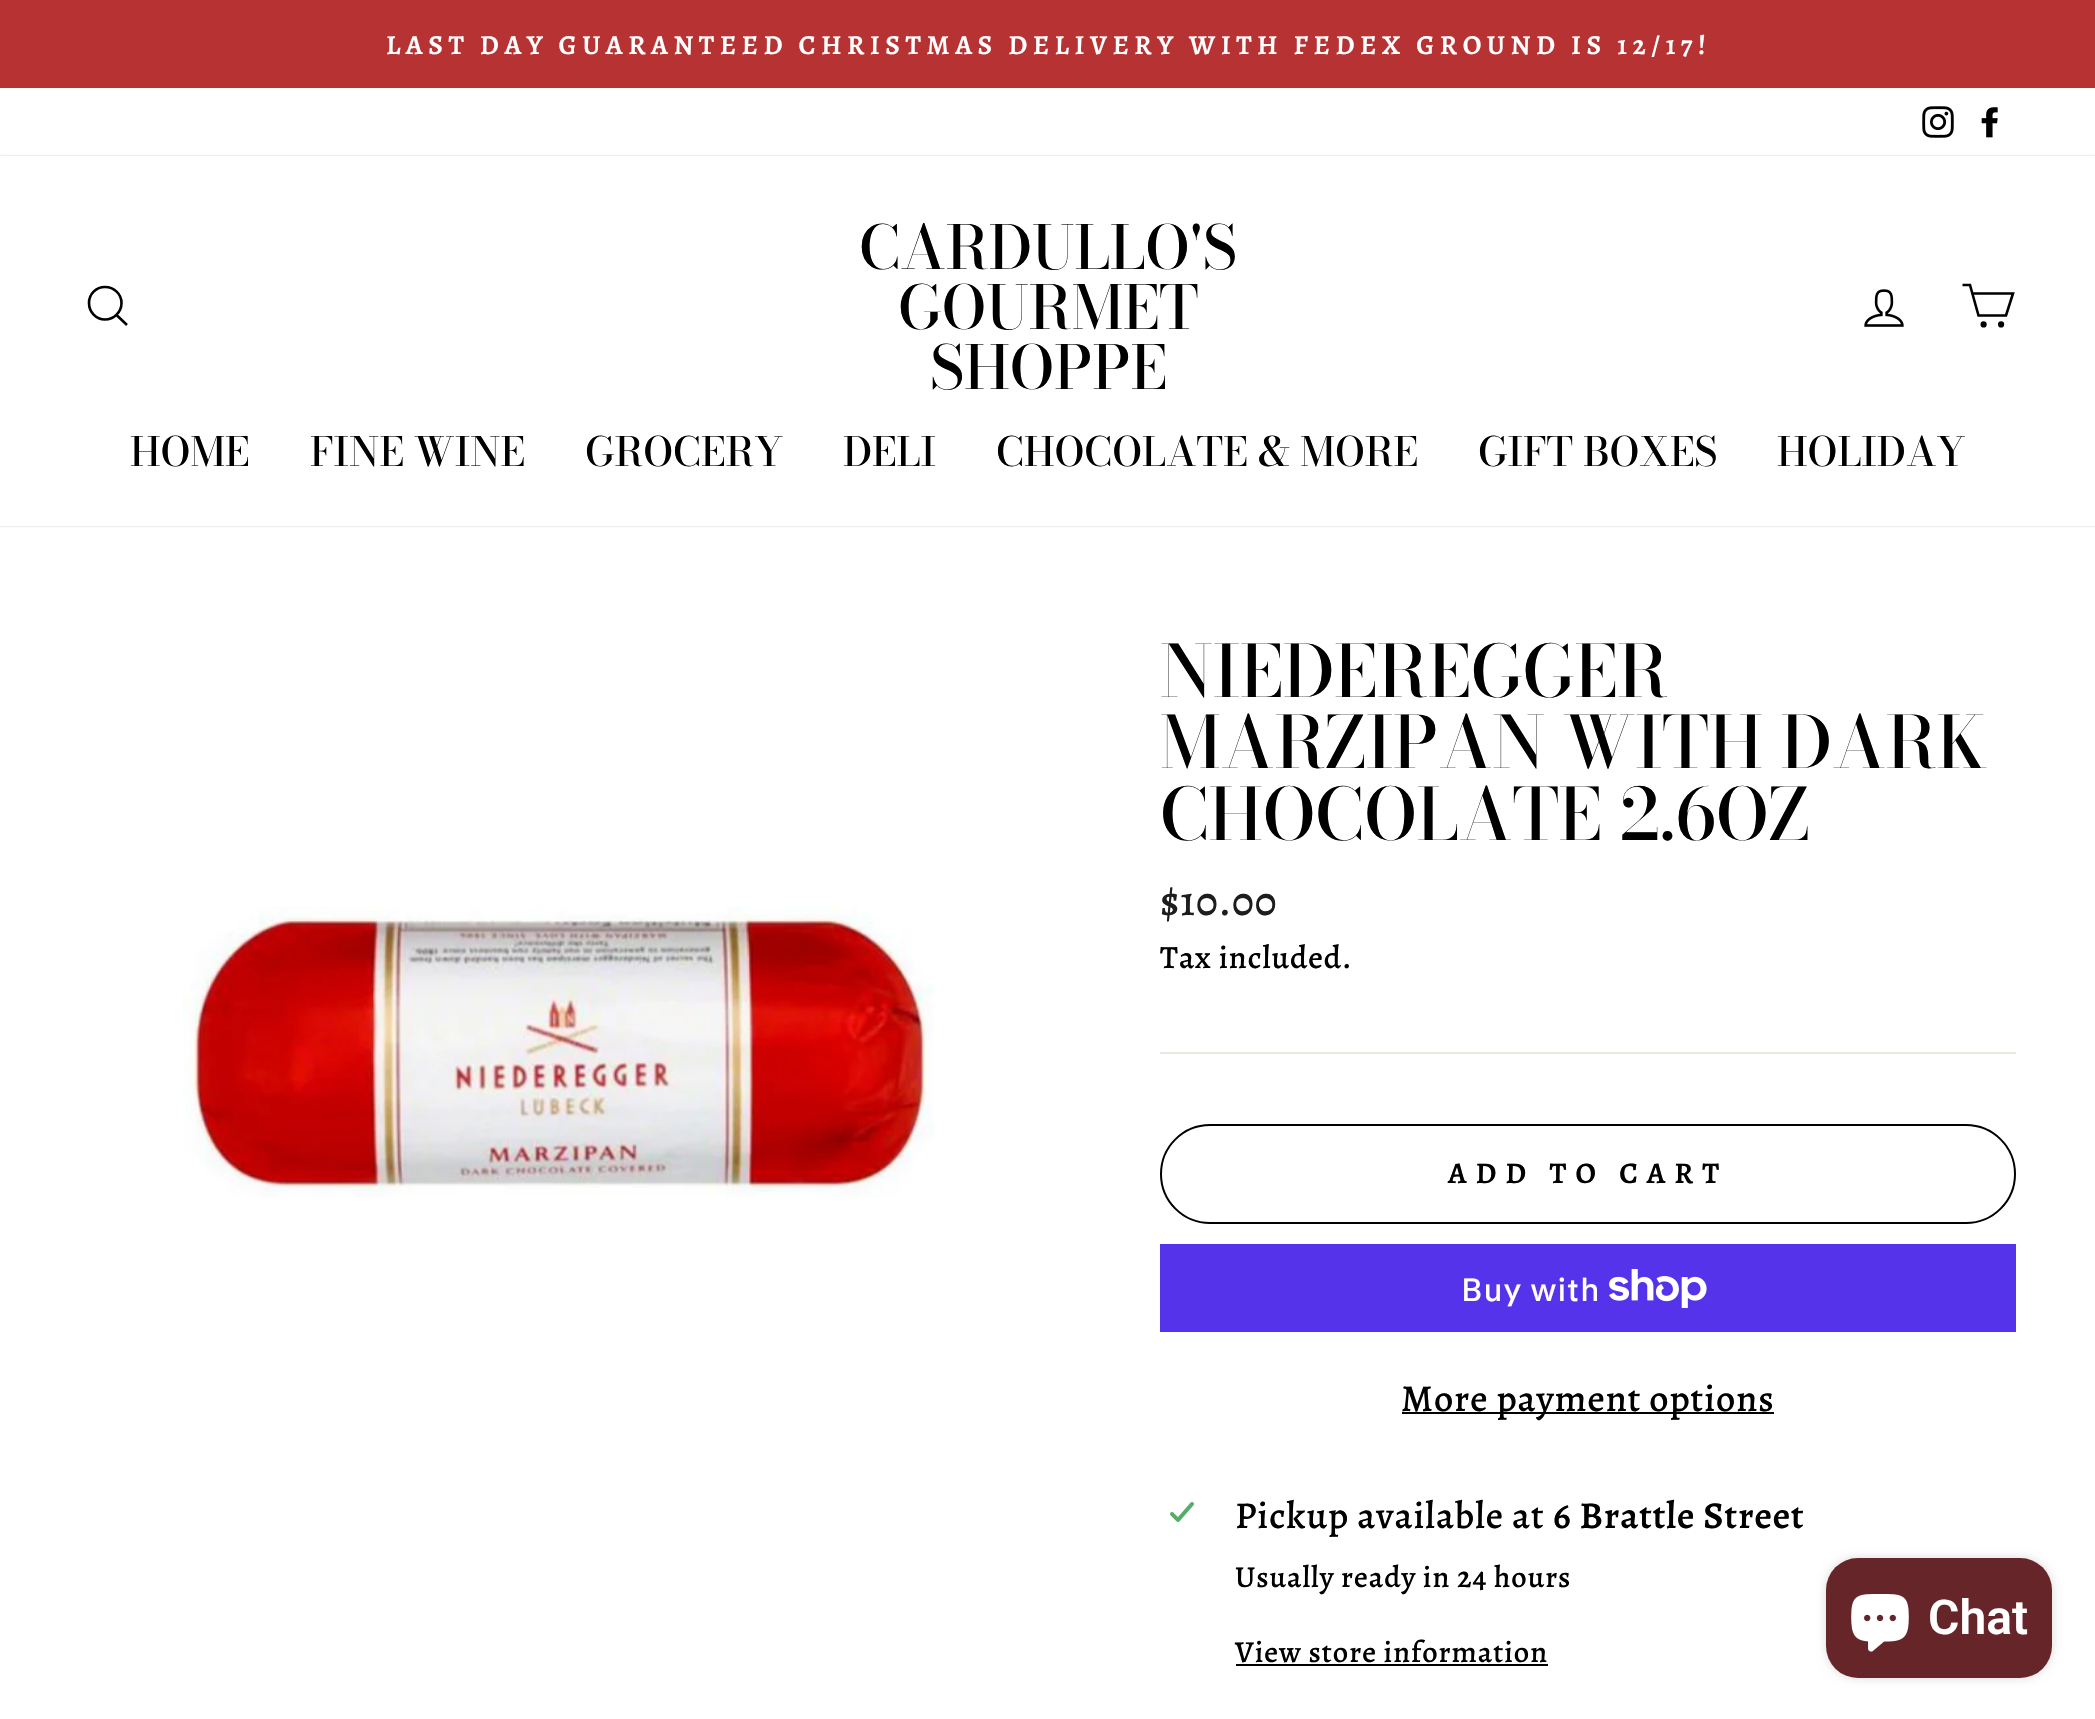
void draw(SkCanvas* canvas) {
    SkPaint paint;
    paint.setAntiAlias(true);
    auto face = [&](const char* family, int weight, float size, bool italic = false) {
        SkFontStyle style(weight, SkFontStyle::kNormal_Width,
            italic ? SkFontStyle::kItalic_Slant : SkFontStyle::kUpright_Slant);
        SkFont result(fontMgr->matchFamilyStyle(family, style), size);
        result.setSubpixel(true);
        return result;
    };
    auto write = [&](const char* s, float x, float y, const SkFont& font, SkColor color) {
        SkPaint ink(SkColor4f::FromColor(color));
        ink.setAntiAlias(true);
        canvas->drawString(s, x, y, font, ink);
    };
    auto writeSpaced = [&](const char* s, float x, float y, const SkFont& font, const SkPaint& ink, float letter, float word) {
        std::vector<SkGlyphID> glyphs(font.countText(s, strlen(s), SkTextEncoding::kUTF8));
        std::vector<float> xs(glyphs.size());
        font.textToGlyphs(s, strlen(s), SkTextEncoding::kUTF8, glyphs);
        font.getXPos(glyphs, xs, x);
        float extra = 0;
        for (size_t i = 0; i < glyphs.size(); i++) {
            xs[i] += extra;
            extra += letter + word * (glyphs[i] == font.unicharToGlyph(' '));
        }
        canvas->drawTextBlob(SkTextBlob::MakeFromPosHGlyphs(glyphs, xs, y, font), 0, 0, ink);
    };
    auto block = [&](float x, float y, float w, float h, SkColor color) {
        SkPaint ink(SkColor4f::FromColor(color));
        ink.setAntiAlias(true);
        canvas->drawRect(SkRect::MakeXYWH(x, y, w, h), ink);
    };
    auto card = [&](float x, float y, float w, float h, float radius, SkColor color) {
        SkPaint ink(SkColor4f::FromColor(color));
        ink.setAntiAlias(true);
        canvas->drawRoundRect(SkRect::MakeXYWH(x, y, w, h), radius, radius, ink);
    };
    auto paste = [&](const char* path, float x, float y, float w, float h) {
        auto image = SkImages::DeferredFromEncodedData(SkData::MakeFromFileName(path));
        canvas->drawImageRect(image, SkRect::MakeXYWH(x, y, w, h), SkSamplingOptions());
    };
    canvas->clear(SK_ColorWHITE);
    block(0, 0, 2095, 88, SkColorSetRGB(183, 50, 50));
    auto kFont1 = face("Alegreya", 600, 27.45f);
    paint.setColor(SK_ColorWHITE);
    writeSpaced("LAST DAY GUARANTEED CHRISTMAS DELIVERY WITH FEDEX GROUND IS 12/17!", 386, 54, kFont1, paint, 5.5f, 0);
    paste("pic1.png", 1922, 106, 32, 32);
    paste("pic2.png", 1981, 107, 17, 31);
    canvas->save();
    canvas->clipPath(SkPathBuilder(SkPathFillType::kEvenOdd).moveTo(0, 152).lineTo(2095, 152).lineTo(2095, 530).lineTo(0, 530).close().moveTo(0, 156).lineTo(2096, 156).lineTo(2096, 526).lineTo(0, 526).close().detach(), true);
    paint.setColor(SkColorSetARGB(51, 0, 0, 0));
    paint.setMaskFilter(SkMaskFilter::MakeBlur(kNormal_SkBlurStyle, 1));
    canvas->drawRect(SkRect::MakeXYWH(0, 156, 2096, 370), paint);
    paint.setMaskFilter(nullptr);
    canvas->restore();
    paint.setStyle(SkPaint::kStroke_Style);
    paint.setStrokeWidth(2.6f);
    paint.setColor(SK_ColorBLACK);
    canvas->drawPath(SkPathBuilder().moveTo(121.5f, 303).cubicTo(121.5f, 312, 114, 319.5f, 105, 319.5f).cubicTo(96, 319.5f, 89, 312, 89, 303).cubicTo(89, 294, 96, 287, 105, 287).cubicTo(114, 287, 121.5f, 294, 121.5f, 303).close().moveTo(127, 325).lineTo(116.5f, 315).detach(), paint);
    auto kFont2 = face("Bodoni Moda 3", 500, 60);
    write("CARDULLO'S", 859, 269, kFont2, SK_ColorBLACK);
    write("GOURMET", 898, 329, kFont2, SK_ColorBLACK);
    write("SHOPPE", 930, 389, kFont2, SK_ColorBLACK);
    paste("pic3.png", 1864, 289, 40, 38);
    canvas->drawPath(SkPathBuilder().moveTo(1972, 293.5f).lineTo(2013, 293.5f).lineTo(2006, 315.5f).lineTo(1978.5f, 315.5f).lineTo(1970, 285).lineTo(1962.5f, 285).detach(), paint);
    paint.setStyle(SkPaint::kFill_Style);
    canvas->drawCircle(1983.6f, 324.4f, 1.8f, paint);
    paint.setStyle(SkPaint::kStroke_Style);
    canvas->drawCircle(1983.6f, 324.4f, 1.8f, paint);
    paint.setStyle(SkPaint::kFill_Style);
    canvas->drawCircle(2001.1f, 324.4f, 1.8f, paint);
    paint.setStyle(SkPaint::kStroke_Style);
    canvas->drawCircle(2001.1f, 324.4f, 1.8f, paint);
    auto kFont3 = face("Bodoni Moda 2", 500, 40);
    write("HOME", 130, 466, kFont3, SK_ColorBLACK);
    write("FINE WINE", 310, 466, kFont3, SK_ColorBLACK);
    write("GROCERY", 585, 466, kFont3, SK_ColorBLACK);
    write("DELI", 843, 466, kFont3, SK_ColorBLACK);
    write("CHOCOLATE & MORE", 996, 466, kFont3, SK_ColorBLACK);
    write("GIFT BOXES", 1478, 466, kFont3, SK_ColorBLACK);
    write("HOLIDAY", 1777, 466, kFont3, SK_ColorBLACK);
    paste("pic4.png", 183, 906, 752, 292);
    auto kFont4 = face("Bodoni Moda", 500, 71.4f);
    write("NIEDEREGGER", 1160, 697, kFont4, SK_ColorBLACK);
    write("MARZIPAN WITH DARK", 1160, 768, kFont4, SK_ColorBLACK);
    write("CHOCOLATE 2.6OZ", 1160, 840, kFont4, SK_ColorBLACK);
    auto kFont5 = face("Alegreya", 500, 42);
    paint.setStyle(SkPaint::kFill_Style);
    paint.setColor(SkColorSetRGB(28, 29, 29));
    writeSpaced("$10.00", 1160, 915, kFont5, paint, 0.95f, 0);
    auto kFont6 = face("Alegreya", 500, 32.25f);
    paint.setColor(SK_ColorBLACK);
    writeSpaced("Tax included.", 1160, 968, kFont6, paint, 0.95f, 0);
    block(1160, 1052, 856, 2, SkColorSetRGB(232, 232, 225));
    paint.setStyle(SkPaint::kStroke_Style);
    paint.setStrokeWidth(2);
    canvas->drawRoundRect(SkRect::MakeXYWH(1161, 1125, 854, 98), 49, 49, paint);
    auto kFont7 = face("Alegreya", 600, 30);
    paint.setStyle(SkPaint::kFill_Style);
    writeSpaced("ADD TO CART", 1448, 1183, kFont7, paint, 9, 0);
    block(1160, 1244, 856, 88, SkColorSetRGB(84, 51, 235));
    auto kFont8 = face("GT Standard", 500, 32);
    paint.setColor(SK_ColorWHITE);
    writeSpaced("Buy with", 1461, 1301, kFont8, paint, 0.95f, 0);
    paste("pic5.png", 1609, 1269, 98, 39);
    block(1402, 1412, 372, 2, SK_ColorBLACK);
    auto kFont9 = face("Alegreya", 500, 38);
    paint.setColor(SK_ColorBLACK);
    writeSpaced("More payment options", 1401, 1411, kFont9, paint, 0.95f, 0);
    paste("pic6.png", 1170, 1502, 24, 20);
    writeSpaced("Pickup available at", 1235, 1528, kFont9, paint, 0.95f, 0);
    auto kFont10 = face("Alegreya", 600, 38);
    writeSpaced("6 Brattle Street", 1553, 1528, kFont10, paint, 0.95f, 0);
    auto kFont11 = face("Alegreya", 500, 30.4f);
    writeSpaced("Usually ready in 24 hours", 1235, 1587, kFont11, paint, 0.95f, 0);
    writeSpaced("View store information", 1235, 1662, kFont11, paint, 0.95f, 0);
    block(1236, 1664, 312, 2, SK_ColorBLACK);
    paint.setColor(SkColorSetARGB(38, 0, 0, 0));
    paint.setMaskFilter(SkMaskFilter::MakeBlur(kNormal_SkBlurStyle, 5));
    canvas->drawRoundRect(SkRect::MakeXYWH(1826, 1558, 226, 120), 32, 32, paint);
    paint.setMaskFilter(nullptr);
    card(1826, 1558, 226, 120, 32, SkColorSetRGB(102, 37, 41));
    paste("pic7.png", 1851, 1594, 58, 58);
    auto kFont12 = face("Roboto", 600, 48);
    write("Chat", 1928, 1634, kFont12, SK_ColorWHITE);
}
